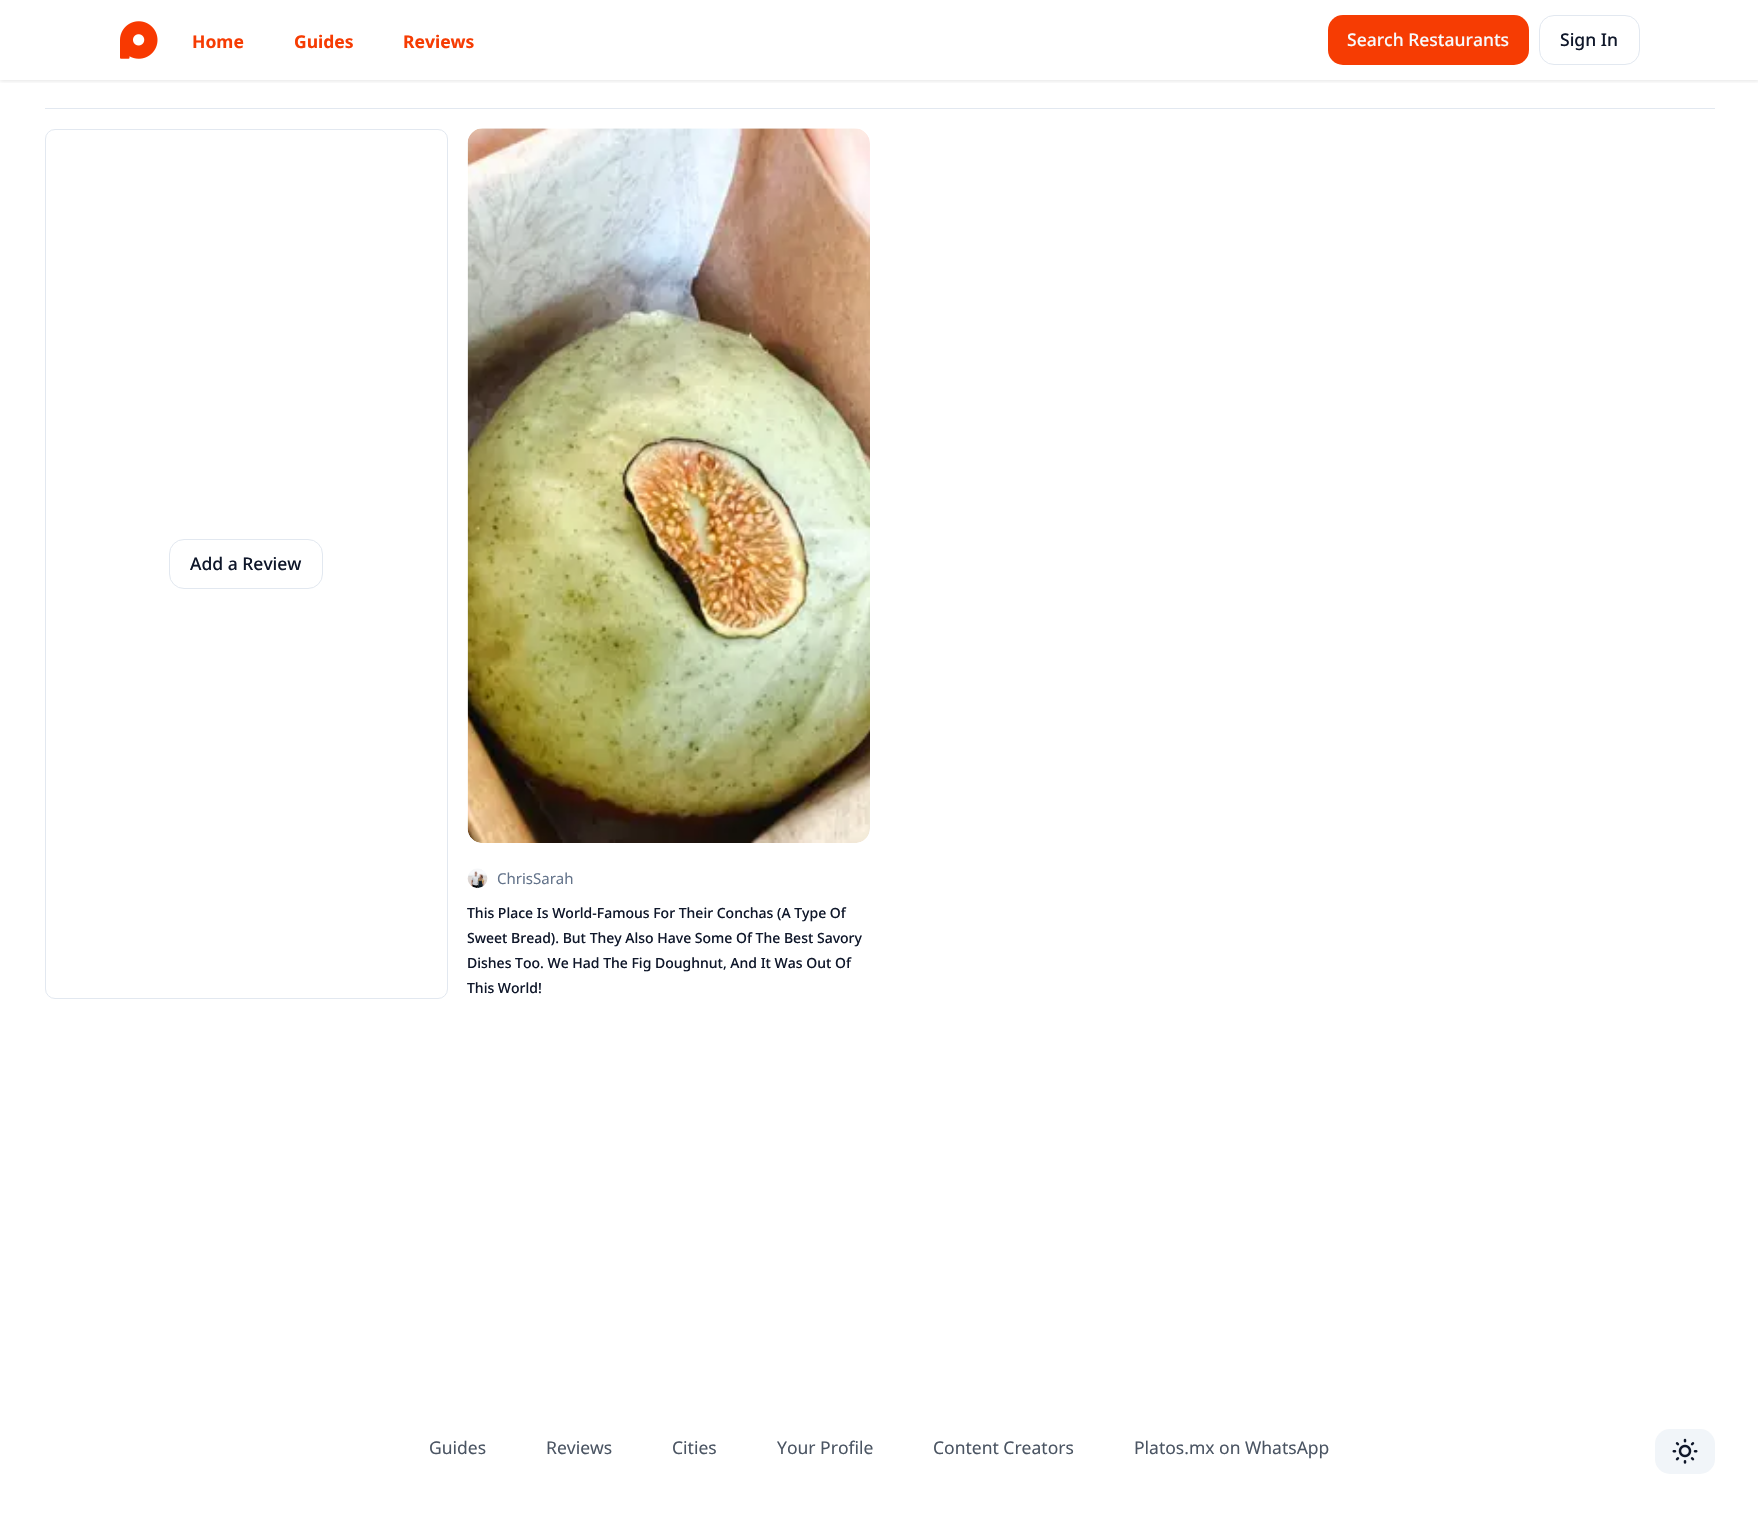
void draw(SkCanvas* canvas) {
    SkPaint paint;
    paint.setAntiAlias(true);
    auto face = [&](const char* family, int weight, float size, bool italic = false) {
        SkFontStyle style(weight, SkFontStyle::kNormal_Width,
            italic ? SkFontStyle::kItalic_Slant : SkFontStyle::kUpright_Slant);
        SkFont result(fontMgr->matchFamilyStyle(family, style), size);
        result.setSubpixel(true);
        return result;
    };
    auto write = [&](const char* s, float x, float y, const SkFont& font, SkColor color) {
        SkPaint ink(SkColor4f::FromColor(color));
        ink.setAntiAlias(true);
        canvas->drawString(s, x, y, font, ink);
    };
    auto block = [&](float x, float y, float w, float h, SkColor color) {
        SkPaint ink(SkColor4f::FromColor(color));
        ink.setAntiAlias(true);
        canvas->drawRect(SkRect::MakeXYWH(x, y, w, h), ink);
    };
    auto card = [&](float x, float y, float w, float h, float radius, SkColor color) {
        SkPaint ink(SkColor4f::FromColor(color));
        ink.setAntiAlias(true);
        canvas->drawRoundRect(SkRect::MakeXYWH(x, y, w, h), radius, radius, ink);
    };
    auto paste = [&](const char* path, float x, float y, float w, float h) {
        auto image = SkImages::DeferredFromEncodedData(SkData::MakeFromFileName(path));
        canvas->drawImageRect(image, SkRect::MakeXYWH(x, y, w, h), SkSamplingOptions());
    };
    canvas->clear(SK_ColorWHITE);
    canvas->save();
    canvas->clipRect(SkRect::MakeXYWH(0, 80, 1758, 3));
    paint.setColor(SkColorSetARGB(26, 0, 0, 0));
    paint.setMaskFilter(SkMaskFilter::MakeBlur(kNormal_SkBlurStyle, 2));
    canvas->drawRect(SkRect::MakeXYWH(0, 1, 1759, 80), paint);
    paint.setMaskFilter(nullptr);
    canvas->restore();
    paste("pic1.png", 120, 21, 38, 38);
    auto kFont1 = face("Noto Sans", 700, 17.5f);
    write("Home", 192, 48, kFont1, SkColorSetRGB(246, 60, 3));
    write("Guides", 294, 48, kFont1, SkColorSetRGB(246, 60, 3));
    write("Reviews", 403, 48, kFont1, SkColorSetRGB(246, 60, 3));
    card(1328, 15, 201, 50, 15, SkColorSetRGB(246, 60, 3));
    auto kFont2 = face("Noto Sans", 500, 17.5f);
    write("Search Restaurants", 1347, 46, kFont2, SkColorSetRGB(248, 250, 252));
    paint.setStyle(SkPaint::kStroke_Style);
    paint.setStrokeWidth(1);
    paint.setColor(SkColorSetRGB(226, 232, 240));
    canvas->drawRoundRect(SkRect::MakeXYWH(1539.5f, 15.5f, 100, 49), 14.5f, 14.5f, paint);
    write("Sign In", 1560, 46, kFont2, SkColorSetRGB(15, 23, 42));
    block(45, 108, 1670, 1, SkColorSetRGB(226, 232, 240));
    canvas->drawRoundRect(SkRect::MakeXYWH(45.5f, 129.5f, 402, 869), 9.5f, 9.5f, paint);
    canvas->drawRoundRect(SkRect::MakeXYWH(169.5f, 539.5f, 153, 49), 14.5f, 14.5f, paint);
    write("Add a Review", 190, 570, kFont2, SkColorSetRGB(15, 23, 42));
    paste("pic2.png", 467, 128, 403, 715);
    paste("pic3.png", 467, 868, 21, 21);
    auto kFont3 = face("Noto Sans", 400, 15);
    write("ChrisSarah", 497, 884, kFont3, SkColorSetRGB(100, 116, 139));
    auto kFont4 = face("Noto Sans", 500, 14);
    write("This Place Is World-Famous For Their Conchas (A Type Of", 467, 918, kFont4, SkColorSetRGB(15, 23, 42));
    write("Sweet Bread). But They Also Have Some Of The Best Savory", 467, 943, kFont4, SkColorSetRGB(15, 23, 42));
    write("Dishes Too. We Had The Fig Doughnut, And It Was Out Of", 467, 968, kFont4, SkColorSetRGB(15, 23, 42));
    write("This World!", 467, 993, kFont4, SkColorSetRGB(15, 23, 42));
    auto kFont5 = face("Noto Sans", 400, 17.5f);
    write("Guides", 429, 1454, kFont5, SkColorSetRGB(75, 85, 99));
    write("Reviews", 546, 1454, kFont5, SkColorSetRGB(75, 85, 99));
    write("Cities", 672, 1454, kFont5, SkColorSetRGB(75, 85, 99));
    write("Your Profile", 777, 1454, kFont5, SkColorSetRGB(75, 85, 99));
    write("Content Creators", 933, 1454, kFont5, SkColorSetRGB(75, 85, 99));
    write("Platos.mx on WhatsApp", 1134, 1454, kFont5, SkColorSetRGB(75, 85, 99));
    card(1655, 1429, 60, 45, 15, SkColorSetRGB(241, 245, 249));
    paste("pic4.png", 1672, 1438, 26, 26);
}
